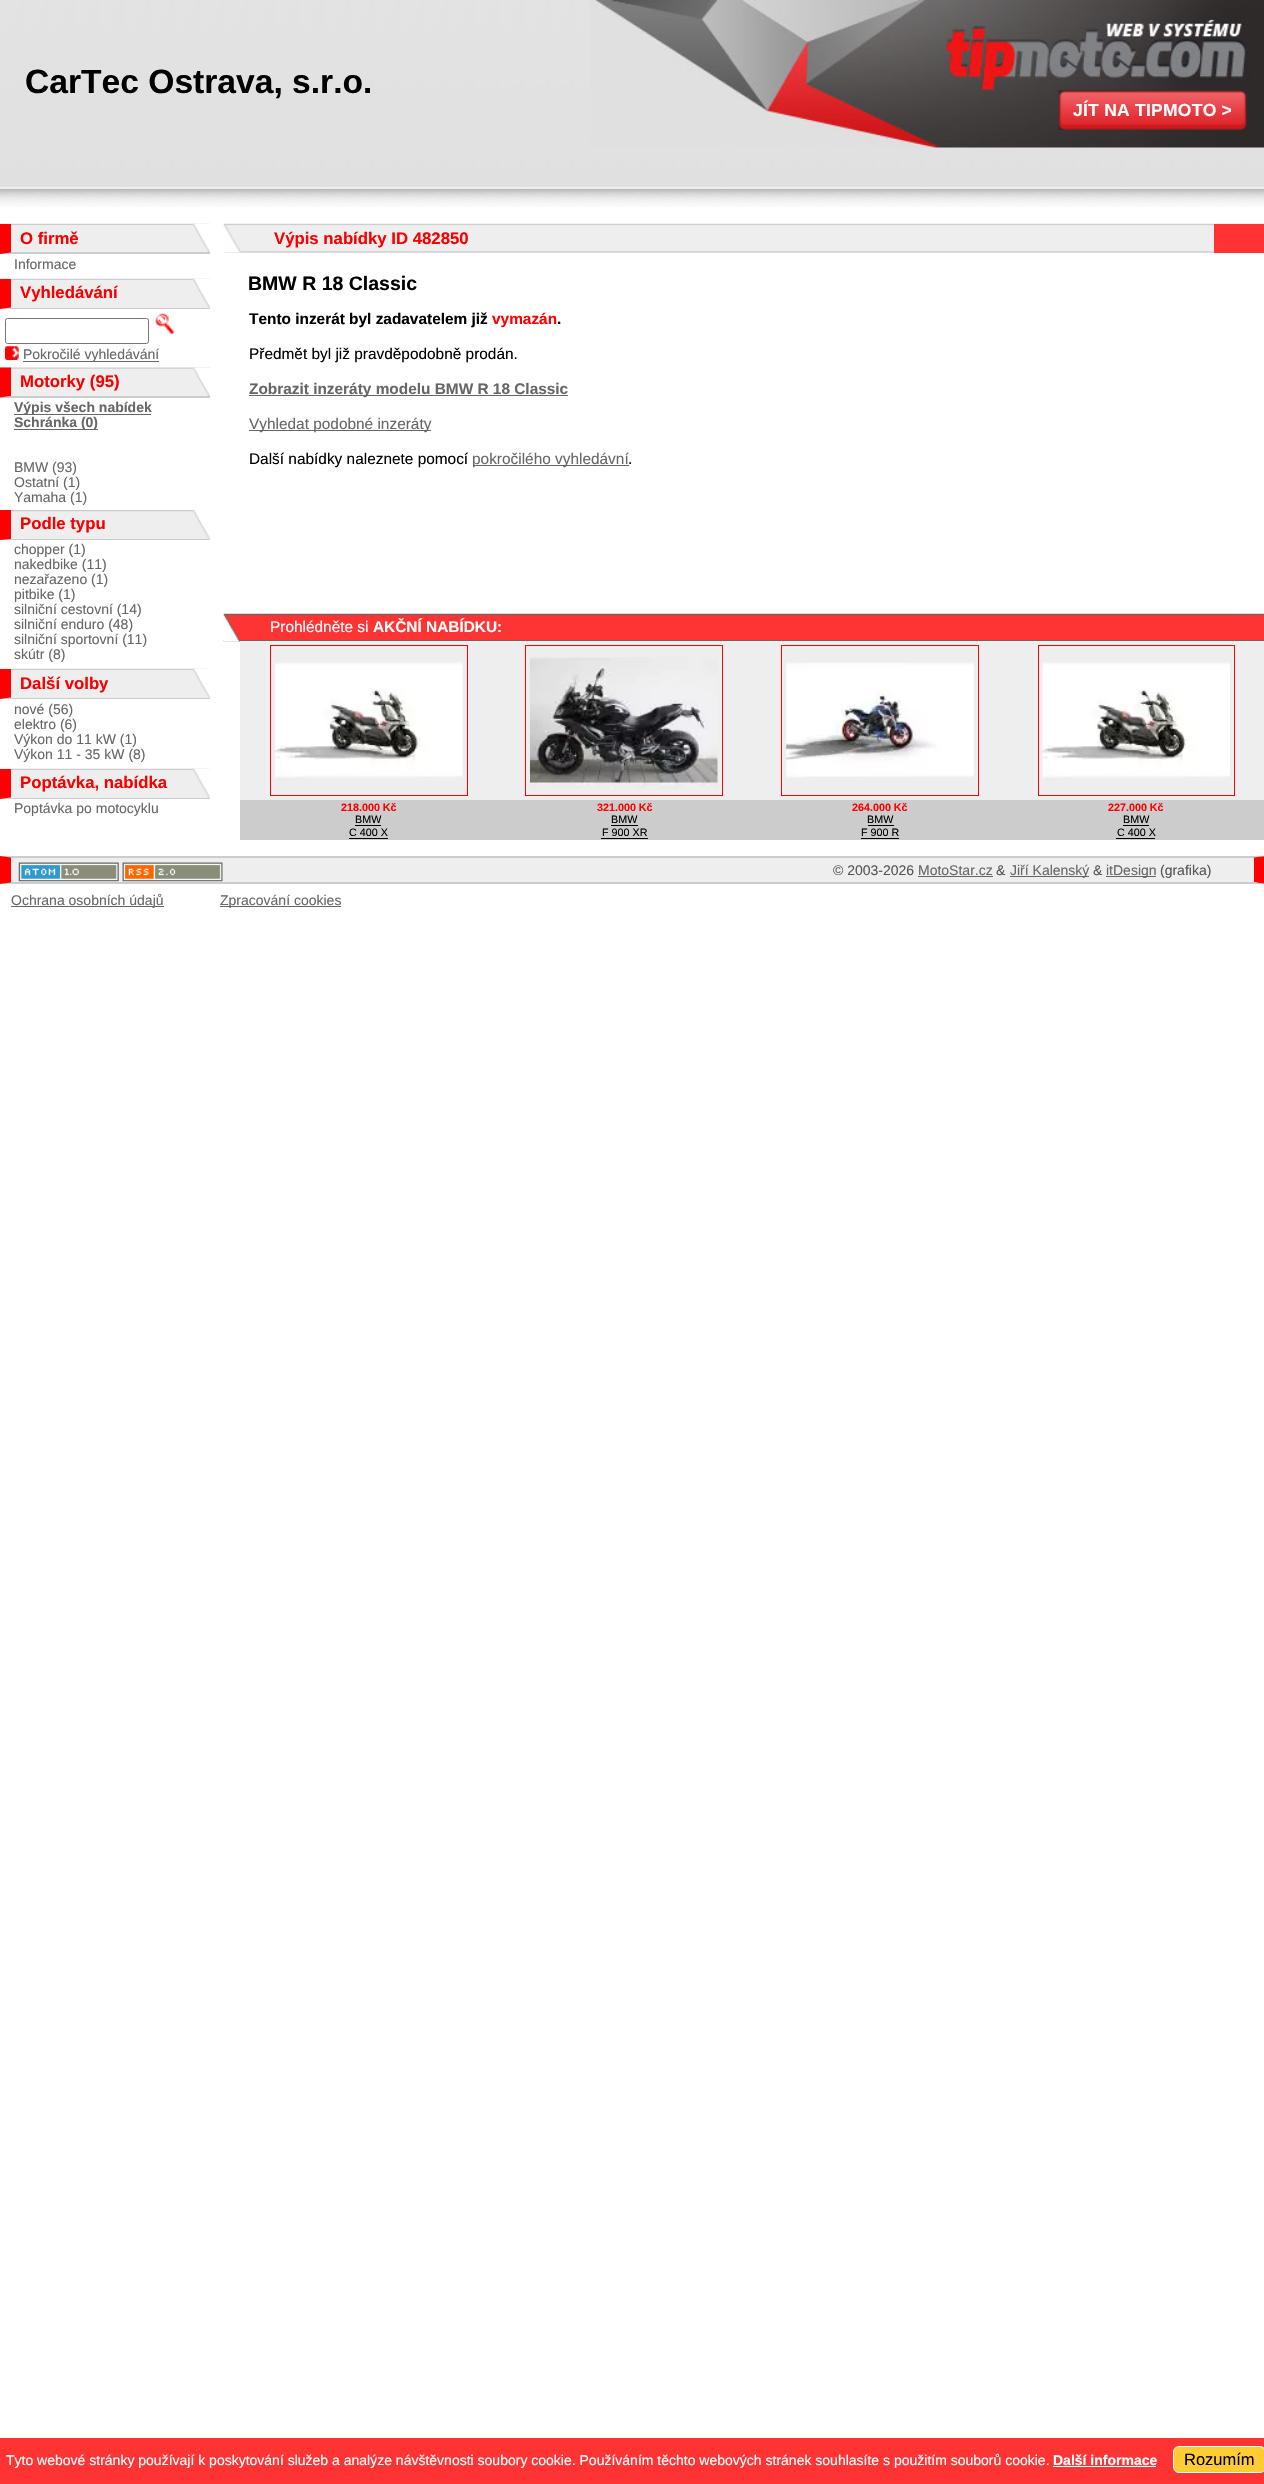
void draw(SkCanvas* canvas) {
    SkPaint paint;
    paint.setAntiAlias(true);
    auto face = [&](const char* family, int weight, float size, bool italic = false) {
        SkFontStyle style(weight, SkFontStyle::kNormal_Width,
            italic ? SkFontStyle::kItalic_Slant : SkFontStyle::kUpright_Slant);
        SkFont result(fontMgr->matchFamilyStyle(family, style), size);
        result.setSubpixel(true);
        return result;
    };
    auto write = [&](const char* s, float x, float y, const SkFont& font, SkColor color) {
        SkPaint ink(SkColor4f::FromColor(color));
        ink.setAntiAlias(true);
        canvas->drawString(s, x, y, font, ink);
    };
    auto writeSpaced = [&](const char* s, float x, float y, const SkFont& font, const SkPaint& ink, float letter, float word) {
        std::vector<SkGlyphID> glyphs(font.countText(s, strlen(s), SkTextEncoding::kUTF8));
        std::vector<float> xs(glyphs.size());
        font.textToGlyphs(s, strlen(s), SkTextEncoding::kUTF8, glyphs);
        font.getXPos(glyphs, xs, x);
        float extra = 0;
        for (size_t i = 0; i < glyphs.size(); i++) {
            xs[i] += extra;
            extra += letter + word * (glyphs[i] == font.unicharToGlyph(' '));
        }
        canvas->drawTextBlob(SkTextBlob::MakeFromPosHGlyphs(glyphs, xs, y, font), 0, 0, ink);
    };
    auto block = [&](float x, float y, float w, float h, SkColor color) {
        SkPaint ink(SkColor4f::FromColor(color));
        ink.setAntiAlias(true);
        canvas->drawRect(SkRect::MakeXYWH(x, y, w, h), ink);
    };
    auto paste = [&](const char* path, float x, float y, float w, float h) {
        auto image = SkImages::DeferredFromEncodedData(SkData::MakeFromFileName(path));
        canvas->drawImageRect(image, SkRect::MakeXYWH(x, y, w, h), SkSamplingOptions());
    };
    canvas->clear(SK_ColorWHITE);
    paste("pic1.png", 0, 0, 1264, 207);
    paste("pic2.png", 590, 0, 674, 148);
    auto kFont1 = face("Liberation Sans", 700, 33.6f);
    write("CarTec Ostrava, s.r.o.", 25, 93, kFont1, SK_ColorBLACK);
    paste("pic3.png", 1058, 90, 189, 40);
    auto kFont2 = face("Liberation Sans", 700, 17.5f);
    paint.setColor(SK_ColorWHITE);
    writeSpaced("JÍT NA TIPMOTO >", 1073, 116, kFont2, paint, 0.25f, 0);
    block(224, 224, 990, 29, SkColorSetRGB(238, 238, 238));
    paste("pic4.png", 223, 251, 991, 2);
    paste("pic5.png", 223, 223, 1041, 30);
    block(1214, 224, 50, 29, SkColorSetRGB(255, 51, 51));
    auto kFont3 = face("Liberation Sans", 700, 16.75f);
    write("Výpis nabídky ID 482850", 274, 244, kFont3, SkColorSetRGB(249, 0, 0));
    auto kFont4 = face("Liberation Sans", 700, 19.5f);
    write("BMW R 18 Classic", 248, 290, kFont4, SK_ColorBLACK);
    auto kFont5 = face("Liberation Sans", 700, 15.4f);
    write("Tento inzerát byl zadavatelem již", 249, 324, kFont5, SK_ColorBLACK);
    write("vymazán", 492, 324, kFont5, SkColorSetRGB(255, 0, 0));
    write(".", 557, 324, kFont5, SK_ColorBLACK);
    auto kFont6 = face("Liberation Sans", 400, 15.4f);
    write("Předmět byl již pravděpodobně prodán.", 249, 359, kFont6, SK_ColorBLACK);
    block(249, 395, 319, 1, SkColorSetRGB(102, 102, 102));
    write("Zobrazit inzeráty modelu BMW R 18 Classic", 249, 394, kFont5, SkColorSetRGB(102, 102, 102));
    block(249, 430, 182, 1, SkColorSetRGB(102, 102, 102));
    write("Vyhledat podobné inzeráty", 249, 429, kFont6, SkColorSetRGB(102, 102, 102));
    write("Další nabídky naleznete pomocí", 249, 464, kFont6, SK_ColorBLACK);
    block(473, 465, 156, 1, SkColorSetRGB(102, 102, 102));
    write("pokročilého vyhledávní", 472, 464, kFont6, SkColorSetRGB(102, 102, 102));
    write(".", 628, 464, kFont6, SK_ColorBLACK);
    block(226, 614, 1038, 27, SkColorSetRGB(254, 51, 51));
    paste("pic6.png", 223, 640, 1041, 2);
    paste("pic7.png", 223, 613, 1041, 29);
    write("Prohlédněte si", 270, 632, kFont6, SK_ColorWHITE);
    write("AKČNÍ NABÍDKU:", 373, 632, kFont5, SK_ColorWHITE);
    block(240, 641, 1024, 159, SkColorSetRGB(238, 238, 238));
    paint.setStyle(SkPaint::kStroke_Style);
    paint.setStrokeWidth(1);
    paint.setColor(SkColorSetRGB(255, 0, 0));
    canvas->drawRect(SkRect::MakeXYWH(270.5f, 645.5f, 197, 150), paint);
    paste("pic8.png", 275, 662, 188, 118);
    canvas->drawRect(SkRect::MakeXYWH(525.5f, 645.5f, 197, 150), paint);
    paste("pic9.png", 530, 657, 188, 132);
    canvas->drawRect(SkRect::MakeXYWH(781.5f, 645.5f, 197, 150), paint);
    paste("pic10.png", 786, 662, 188, 116);
    canvas->drawRect(SkRect::MakeXYWH(1038.5f, 645.5f, 196, 150), paint);
    paste("pic11.png", 1042, 662, 188, 118);
    block(240, 800, 1024, 40, SkColorSetRGB(204, 204, 204));
    auto kFont7 = face("Liberation Sans", 700, 10.75f);
    write("218.000 Kč", 341, 811, kFont7, SkColorSetRGB(255, 0, 0));
    auto kFont8 = face("Liberation Sans", 400, 10.75f);
    write("BMW", 355, 823, kFont8, SK_ColorBLACK);
    block(355, 825, 26, 1, SK_ColorBLACK);
    write("C 400 X", 349, 836, kFont8, SK_ColorBLACK);
    block(349, 838, 39, 1, SK_ColorBLACK);
    write("321.000 Kč", 597, 811, kFont7, SkColorSetRGB(255, 0, 0));
    write("BMW", 611, 823, kFont8, SK_ColorBLACK);
    block(611, 825, 27, 1, SK_ColorBLACK);
    write("F 900 XR", 602, 836, kFont8, SK_ColorBLACK);
    block(601, 838, 47, 1, SK_ColorBLACK);
    write("264.000 Kč", 852, 811, kFont7, SkColorSetRGB(255, 0, 0));
    write("BMW", 867, 823, kFont8, SK_ColorBLACK);
    block(868, 825, 26, 1, SK_ColorBLACK);
    write("F 900 R", 861, 836, kFont8, SK_ColorBLACK);
    block(861, 838, 38, 1, SK_ColorBLACK);
    write("227.000 Kč", 1108, 811, kFont7, SkColorSetRGB(255, 0, 0));
    write("BMW", 1123, 823, kFont8, SK_ColorBLACK);
    block(1123, 825, 26, 1, SK_ColorBLACK);
    write("C 400 X", 1117, 836, kFont8, SK_ColorBLACK);
    block(1116, 838, 39, 1, SK_ColorBLACK);
    block(0, 225, 208, 29, SkColorSetRGB(238, 238, 238));
    paste("pic12.png", 0, 223, 210, 2);
    paste("pic13.png", 192, 223, 18, 29);
    paint.setStyle(SkPaint::kFill_Style);
    paint.setColor(SkColorSetRGB(204, 204, 204));
    canvas->drawPath(SkPathBuilder().moveTo(210, 254).lineTo(0, 254).lineTo(11, 252).lineTo(210, 252).close().detach(), paint);
    paint.setColor(SkColorSetRGB(255, 0, 0));
    canvas->drawPath(SkPathBuilder().moveTo(0, 254).lineTo(0, 224).lineTo(11, 224).lineTo(11, 252.5f).close().detach(), paint);
    write("O firmě", 20, 244, kFont3, SkColorSetRGB(249, 0, 0));
    auto kFont9 = face("Liberation Sans", 400, 14);
    write("Informace", 14, 269, kFont9, SkColorSetRGB(102, 102, 102));
    block(0, 280, 210, 29, SkColorSetRGB(238, 238, 238));
    paste("pic12.png", 0, 278, 210, 2);
    paste("pic14.png", 192, 278, 18, 30);
    paint.setColor(SkColorSetRGB(204, 204, 204));
    canvas->drawPath(SkPathBuilder().moveTo(210, 309).lineTo(0, 309).lineTo(11, 308).lineTo(210, 308).close().detach(), paint);
    paint.setColor(SkColorSetRGB(255, 0, 0));
    canvas->drawPath(SkPathBuilder().moveTo(0, 309).lineTo(0, 279).lineTo(11, 279).lineTo(11, 307.5f).close().detach(), paint);
    write("Vyhledávání", 20, 298, kFont3, SkColorSetRGB(249, 0, 0));
    paint.setStyle(SkPaint::kStroke_Style);
    paint.setColor(SkColorSetRGB(118, 118, 118));
    canvas->drawRoundRect(SkRect::MakeXYWH(5.5f, 318.5f, 143, 25), 2, 2, paint);
    paste("pic15.png", 155, 313, 19, 21);
    paste("pic16.png", 5, 346, 14, 14);
    block(23, 361, 136, 1, SkColorSetRGB(102, 102, 102));
    write("Pokročilé vyhledávání", 23, 359, kFont9, SkColorSetRGB(102, 102, 102));
    block(0, 368, 208, 30, SkColorSetRGB(238, 238, 238));
    paste("pic17.png", 0, 367, 210, 2);
    paste("pic18.png", 193, 367, 17, 29);
    paint.setStyle(SkPaint::kFill_Style);
    paint.setColor(SkColorSetRGB(204, 204, 204));
    canvas->drawPath(SkPathBuilder().moveTo(210, 398).lineTo(0, 398).lineTo(11, 396).lineTo(210, 396).close().detach(), paint);
    paint.setColor(SkColorSetRGB(255, 0, 0));
    canvas->drawPath(SkPathBuilder().moveTo(0, 397.5f).lineTo(0, 367.5f).lineTo(11, 367.5f).lineTo(11, 396).close().detach(), paint);
    write("Motorky (95)", 20, 387, kFont3, SkColorSetRGB(249, 0, 0));
    block(14, 414, 137, 1, SkColorSetRGB(102, 102, 102));
    auto kFont10 = face("Liberation Sans", 700, 14);
    write("Výpis všech nabídek", 14, 412, kFont10, SkColorSetRGB(102, 102, 102));
    block(14, 429, 84, 1, SkColorSetRGB(102, 102, 102));
    write("Schránka (0)", 14, 427, kFont10, SkColorSetRGB(102, 102, 102));
    write("BMW (93)", 14, 472, kFont9, SkColorSetRGB(102, 102, 102));
    write("Ostatní (1)", 14, 487, kFont9, SkColorSetRGB(102, 102, 102));
    write("Yamaha (1)", 14, 502, kFont9, SkColorSetRGB(102, 102, 102));
    block(0, 511, 210, 29, SkColorSetRGB(238, 238, 238));
    paste("pic19.png", 11, 510, 182, 2);
    paste("pic20.png", 192, 510, 18, 29);
    paint.setColor(SkColorSetRGB(204, 204, 204));
    canvas->drawPath(SkPathBuilder().moveTo(210, 540).lineTo(0, 540).lineTo(11, 539).lineTo(210, 539).close().detach(), paint);
    paint.setColor(SkColorSetRGB(255, 0, 0));
    canvas->drawPath(SkPathBuilder().moveTo(0, 540).lineTo(0, 510).lineTo(11, 510).lineTo(11, 539).close().detach(), paint);
    write("Podle typu", 20, 529, kFont3, SkColorSetRGB(249, 0, 0));
    write("chopper (1)", 14, 554, kFont9, SkColorSetRGB(102, 102, 102));
    write("nakedbike (11)", 14, 569, kFont9, SkColorSetRGB(102, 102, 102));
    write("nezařazeno (1)", 14, 584, kFont9, SkColorSetRGB(102, 102, 102));
    write("pitbike (1)", 14, 599, kFont9, SkColorSetRGB(102, 102, 102));
    write("silniční cestovní (14)", 14, 614, kFont9, SkColorSetRGB(102, 102, 102));
    write("silniční enduro (48)", 14, 629, kFont9, SkColorSetRGB(102, 102, 102));
    write("silniční sportovní (11)", 14, 644, kFont9, SkColorSetRGB(102, 102, 102));
    write("skútr (8)", 14, 659, kFont9, SkColorSetRGB(102, 102, 102));
    block(0, 670, 210, 29, SkColorSetRGB(238, 238, 238));
    paste("pic12.png", 0, 668, 210, 2);
    paste("pic21.png", 192, 668, 18, 30);
    paint.setColor(SkColorSetRGB(204, 204, 204));
    canvas->drawPath(SkPathBuilder().moveTo(210, 699).lineTo(0, 699).lineTo(11, 698).lineTo(210, 698).close().detach(), paint);
    paint.setColor(SkColorSetRGB(255, 0, 0));
    canvas->drawPath(SkPathBuilder().moveTo(0, 699).lineTo(0, 669).lineTo(11, 669).lineTo(11, 697.5f).close().detach(), paint);
    write("Další volby", 20, 689, kFont3, SkColorSetRGB(249, 0, 0));
    write("nové (56)", 14, 714, kFont9, SkColorSetRGB(102, 102, 102));
    write("elektro (6)", 14, 729, kFont9, SkColorSetRGB(102, 102, 102));
    write("Výkon do 11 kW (1)", 14, 744, kFont9, SkColorSetRGB(102, 102, 102));
    write("Výkon 11 - 35 kW (8)", 14, 759, kFont9, SkColorSetRGB(102, 102, 102));
    block(0, 770, 210, 29, SkColorSetRGB(238, 238, 238));
    paste("pic12.png", 0, 768, 210, 2);
    paste("pic21.png", 192, 768, 18, 30);
    paint.setColor(SkColorSetRGB(204, 204, 204));
    canvas->drawPath(SkPathBuilder().moveTo(210, 799).lineTo(0, 799).lineTo(11, 798).lineTo(210, 798).close().detach(), paint);
    paint.setColor(SkColorSetRGB(255, 0, 0));
    canvas->drawPath(SkPathBuilder().moveTo(0, 799).lineTo(0, 769).lineTo(11, 769).lineTo(11, 797.5f).close().detach(), paint);
    write("Poptávka, nabídka", 20, 788, kFont3, SkColorSetRGB(249, 0, 0));
    write("Poptávka po motocyklu", 14, 813, kFont9, SkColorSetRGB(102, 102, 102));
    block(11, 858, 1243, 24, SkColorSetRGB(238, 238, 238));
    paint.setColor(SkColorSetRGB(204, 204, 204));
    canvas->drawPath(SkPathBuilder().moveTo(0, 856).lineTo(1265, 856).lineTo(1254, 858).lineTo(11, 858).close().detach(), paint);
    paint.setColor(SkColorSetRGB(255, 0, 0));
    canvas->drawPath(SkPathBuilder().moveTo(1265, 856).lineTo(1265, 884).lineTo(1254, 882.5f).lineTo(1254, 857.5f).close().detach(), paint);
    paint.setColor(SkColorSetRGB(204, 204, 204));
    canvas->drawPath(SkPathBuilder().moveTo(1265, 884).lineTo(0, 884).lineTo(11, 882).lineTo(1254, 882).close().detach(), paint);
    paint.setColor(SkColorSetRGB(255, 0, 0));
    canvas->drawPath(SkPathBuilder().moveTo(0, 884).lineTo(0, 856).lineTo(11, 857.5f).lineTo(11, 882.5f).close().detach(), paint);
    paste("pic22.png", 18, 862, 101, 20);
    paste("pic23.png", 122, 862, 101, 20);
    write("© 2003-2026", 833, 875, kFont9, SkColorSetRGB(84, 84, 84));
    write("MotoStar.cz", 918, 875, kFont9, SkColorSetRGB(102, 102, 102));
    block(918, 876, 75, 1, SkColorSetRGB(102, 102, 102));
    write("&", 996, 875, kFont9, SkColorSetRGB(84, 84, 84));
    block(1010, 876, 79, 1, SkColorSetRGB(102, 102, 102));
    write("Jiří Kalenský", 1010, 875, kFont9, SkColorSetRGB(102, 102, 102));
    write("&", 1093, 875, kFont9, SkColorSetRGB(84, 84, 84));
    block(1106, 876, 50, 1, SkColorSetRGB(102, 102, 102));
    write("itDesign", 1106, 875, kFont9, SkColorSetRGB(102, 102, 102));
    write("(grafika)", 1160, 875, kFont9, SkColorSetRGB(84, 84, 84));
    block(11, 906, 153, 1, SkColorSetRGB(102, 102, 102));
    write("Ochrana osobních údajů", 11, 905, kFont9, SkColorSetRGB(102, 102, 102));
    block(220, 906, 121, 1, SkColorSetRGB(102, 102, 102));
    write("Zpracování cookies", 220, 905, kFont9, SkColorSetRGB(102, 102, 102));
    block(0, 2438, 1264, 46, SkColorSetRGB(254, 51, 51));
    write("Tyto webové stránky používají k poskytování služeb a analýze návštěvnosti soubory cookie. Používáním těchto webových stránek souhlasíte s použitím souborů cookie.", 6, 2465, kFont9, SK_ColorWHITE);
    write("Další informace", 1053, 2465, kFont10, SK_ColorWHITE);
    block(1053, 2466, 103, 1, SK_ColorWHITE);
    paint.setColor(SkColorSetRGB(255, 204, 51));
    canvas->drawRoundRect(SkRect::MakeXYWH(1173.5f, 2446.5f, 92, 26), 5.5f, 5.5f, paint);
    paint.setStyle(SkPaint::kStroke_Style);
    paint.setColor(SK_ColorWHITE);
    canvas->drawRoundRect(SkRect::MakeXYWH(1173.5f, 2446.5f, 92, 26), 5.5f, 5.5f, paint);
    auto kFont11 = face("Liberation Sans", 400, 16.5f);
    write("Rozumím", 1184, 2465, kFont11, SK_ColorBLACK);
}
